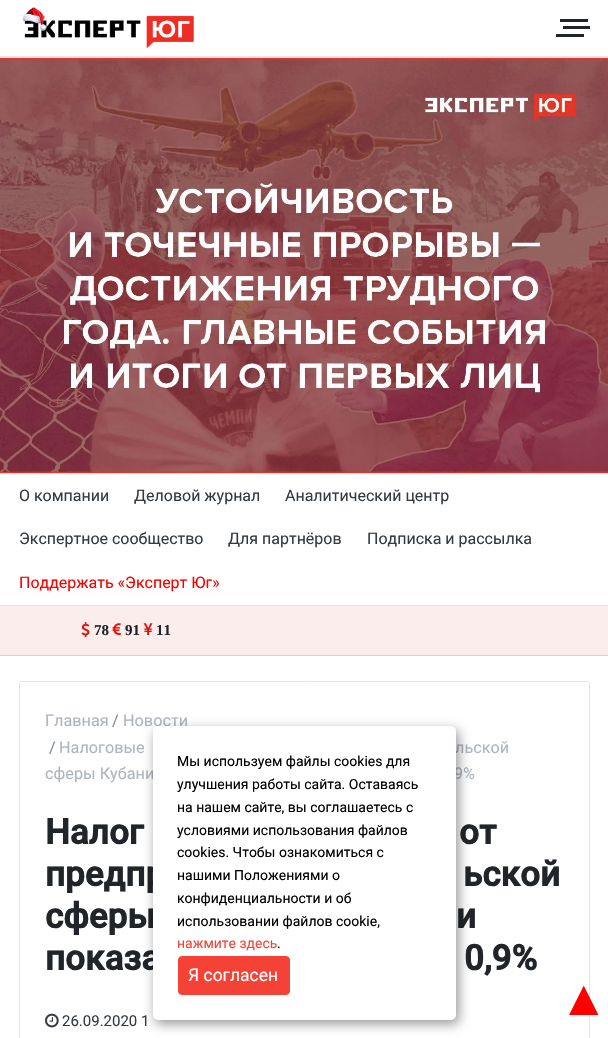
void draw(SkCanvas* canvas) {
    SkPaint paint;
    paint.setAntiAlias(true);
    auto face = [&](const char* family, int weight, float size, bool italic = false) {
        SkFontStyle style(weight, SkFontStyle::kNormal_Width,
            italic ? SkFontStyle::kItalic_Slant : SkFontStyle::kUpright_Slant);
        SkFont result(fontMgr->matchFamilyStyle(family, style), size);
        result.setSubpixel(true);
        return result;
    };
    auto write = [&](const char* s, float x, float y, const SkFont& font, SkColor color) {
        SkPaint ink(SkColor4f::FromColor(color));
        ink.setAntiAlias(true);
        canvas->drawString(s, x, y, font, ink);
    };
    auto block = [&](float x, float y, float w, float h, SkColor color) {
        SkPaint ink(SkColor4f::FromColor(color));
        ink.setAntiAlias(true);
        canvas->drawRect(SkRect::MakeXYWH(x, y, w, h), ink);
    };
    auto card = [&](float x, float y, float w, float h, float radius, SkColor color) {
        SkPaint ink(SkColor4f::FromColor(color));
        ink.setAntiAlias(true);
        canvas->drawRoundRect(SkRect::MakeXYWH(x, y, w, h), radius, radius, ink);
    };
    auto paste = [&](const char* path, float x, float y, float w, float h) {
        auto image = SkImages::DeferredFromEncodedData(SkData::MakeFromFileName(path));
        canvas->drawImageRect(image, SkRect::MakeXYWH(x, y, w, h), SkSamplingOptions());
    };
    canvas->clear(SK_ColorWHITE);
    block(0, 56, 608, 1, SkColorSetRGB(230, 230, 230));
    paste("pic1.png", 22, 7, 172, 42);
    block(563, 26, 27, 3, SkColorSetRGB(33, 37, 41));
    block(560, 19, 28, 3, SkColorSetRGB(33, 37, 41));
    block(556, 34, 28, 3, SkColorSetRGB(33, 37, 41));
    paste("pic2.png", 0, 57, 608, 416);
    block(0, 473, 608, 1, SkColorSetRGB(230, 230, 230));
    block(0, 605, 608, 1, SkColorSetRGB(230, 230, 230));
    auto kFont1 = face("Roboto", 400, 16);
    write("О компании", 19, 501, kFont1, SkColorSetRGB(52, 58, 64));
    write("Деловой журнал", 134, 501, kFont1, SkColorSetRGB(52, 58, 64));
    write("Аналитический центр", 285, 501, kFont1, SkColorSetRGB(52, 58, 64));
    write("Экспертное сообщество", 19, 544, kFont1, SkColorSetRGB(52, 58, 64));
    write("Для партнёров", 228, 544, kFont1, SkColorSetRGB(52, 58, 64));
    write("Подписка и рассылка", 367, 544, kFont1, SkColorSetRGB(52, 58, 64));
    write("Поддержать «Эксперт Юг»", 19, 588, kFont1, SkColorSetRGB(255, 0, 0));
    block(0, 606, 608, 49, SkColorSetRGB(252, 237, 237));
    block(0, 655, 608, 1, SkColorSetRGB(211, 211, 211));
    paste("pic3.png", 81, 622, 9, 16);
    auto kFont2 = face("Liberation Serif", 700, 15);
    write("78", 94, 635, kFont2, SkColorSetRGB(33, 37, 41));
    paste("pic4.png", 112, 623, 9, 12);
    write("91", 125, 635, kFont2, SkColorSetRGB(33, 37, 41));
    paste("pic5.png", 143, 623, 10, 12);
    write("11", 156, 635, kFont2, SkColorSetRGB(33, 37, 41));
    paint.setStyle(SkPaint::kStroke_Style);
    paint.setStrokeWidth(1);
    paint.setColor(SkColorSetRGB(230, 230, 230));
    canvas->drawRoundRect(SkRect::MakeXYWH(19.5f, 681.5f, 570, 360), 2, 2, paint);
    auto kFont3 = face("Roboto", 400, 16.25f);
    write("Главная", 45, 726, kFont3, SkColorSetRGB(173, 181, 189));
    write("/", 112, 726, kFont3, SkColorSetRGB(134, 142, 150));
    write("Новости", 123, 726, kFont3, SkColorSetRGB(173, 181, 189));
    write("/", 49, 753, kFont3, SkColorSetRGB(134, 142, 150));
    write("Налоговые", 59, 753, kFont3, SkColorSetRGB(173, 181, 189));
    write("льской", 455, 753, kFont3, SkColorSetRGB(173, 181, 189));
    write("сферы Кубани", 45, 779, kFont3, SkColorSetRGB(173, 181, 189));
    write("9%", 454, 779, kFont3, SkColorSetRGB(173, 181, 189));
    auto kFont4 = face("Roboto", 700, 35);
    write("Налог", 45, 844, kFont4, SkColorSetRGB(33, 37, 41));
    write("от", 459, 844, kFont4, SkColorSetRGB(33, 37, 41));
    write("предпр", 45, 886, kFont4, SkColorSetRGB(33, 37, 41));
    write("ьской", 463, 886, kFont4, SkColorSetRGB(33, 37, 41));
    write("сферы", 45, 928, kFont4, SkColorSetRGB(33, 37, 41));
    write("и", 456, 928, kFont4, SkColorSetRGB(33, 37, 41));
    write("показа", 45, 970, kFont4, SkColorSetRGB(33, 37, 41));
    write("0,9%", 464, 970, kFont4, SkColorSetRGB(33, 37, 41));
    paste("pic6.png", 45, 1013, 14, 15);
    auto kFont5 = face("Roboto", 400, 15);
    write("26.09.2020 1", 62, 1026, kFont5, SkColorSetRGB(52, 58, 64));
    paint.setStyle(SkPaint::kFill_Style);
    paint.setColor(SkColorSetARGB(102, 0, 0, 0));
    paint.setMaskFilter(SkMaskFilter::MakeBlur(kNormal_SkBlurStyle, 6));
    canvas->drawRoundRect(SkRect::MakeXYWH(155, 730, 304, 294), 5, 5, paint);
    paint.setMaskFilter(nullptr);
    card(153, 726, 303, 294, 5, SK_ColorWHITE);
    auto kFont6 = face("Roboto", 400, 14);
    write("Мы используем файлы cookies для", 177, 766, kFont6, SK_ColorBLACK);
    write("улучшения работы сайта. Оставаясь", 177, 789, kFont6, SK_ColorBLACK);
    write("на нашем сайте, вы соглашаетесь с", 177, 812, kFont6, SK_ColorBLACK);
    write("условиями использования файлов", 177, 835, kFont6, SK_ColorBLACK);
    write("cookies. Чтобы ознакомиться с", 177, 857, kFont6, SK_ColorBLACK);
    write("нашими Положениями о", 177, 880, kFont6, SK_ColorBLACK);
    write("конфиденциальности и об", 177, 903, kFont6, SK_ColorBLACK);
    write("использовании файлов cookie,", 177, 926, kFont6, SK_ColorBLACK);
    write("нажмите здесь", 177, 948, kFont6, SkColorSetRGB(244, 67, 54));
    write(".", 277, 948, kFont6, SK_ColorBLACK);
    paint.setColor(SkColorSetRGB(244, 67, 54));
    canvas->drawRoundRect(SkRect::MakeXYWH(178.5f, 956.5f, 111, 38), 3.5f, 3.5f, paint);
    paint.setStyle(SkPaint::kStroke_Style);
    canvas->drawRoundRect(SkRect::MakeXYWH(178.5f, 956.5f, 111, 38), 3.5f, 3.5f, paint);
    auto kFont7 = face("Roboto", 400, 17.5f);
    write("Я согласен", 188, 981, kFont7, SK_ColorWHITE);
    auto kFont8 = face("Liberation Sans", 400, 50);
    write("▲", 559, 1015, kFont8, SkColorSetRGB(255, 0, 0));
}
